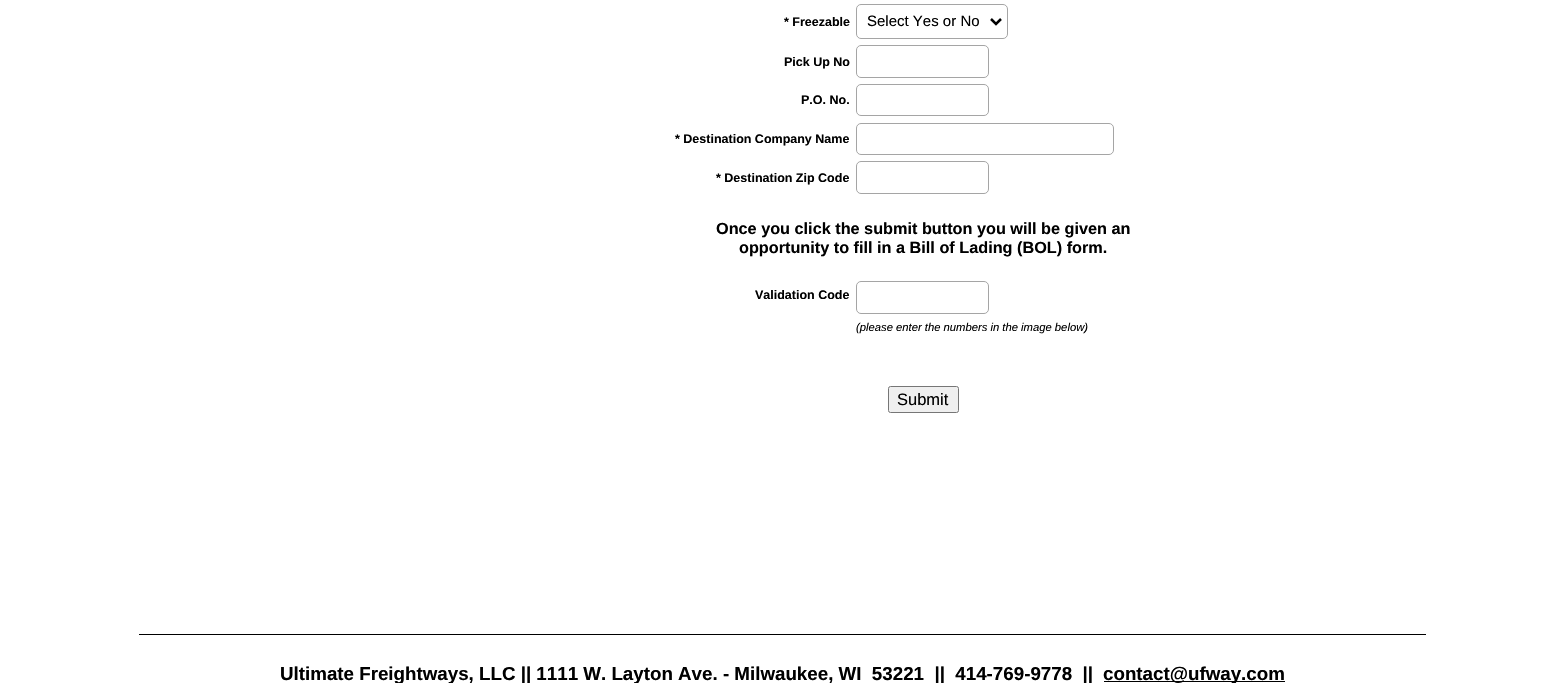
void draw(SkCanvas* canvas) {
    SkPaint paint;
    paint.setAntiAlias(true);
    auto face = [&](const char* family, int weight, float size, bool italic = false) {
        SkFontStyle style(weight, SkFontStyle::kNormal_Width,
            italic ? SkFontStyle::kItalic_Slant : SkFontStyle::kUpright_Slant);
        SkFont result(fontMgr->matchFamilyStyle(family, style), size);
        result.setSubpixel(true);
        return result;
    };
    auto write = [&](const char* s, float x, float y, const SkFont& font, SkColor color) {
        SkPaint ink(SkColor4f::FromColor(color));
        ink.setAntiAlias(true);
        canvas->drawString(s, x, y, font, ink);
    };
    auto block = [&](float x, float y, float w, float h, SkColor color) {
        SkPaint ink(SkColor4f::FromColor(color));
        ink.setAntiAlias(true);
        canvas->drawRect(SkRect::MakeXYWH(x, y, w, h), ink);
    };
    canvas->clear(SK_ColorWHITE);
    auto kFont1 = face("Liberation Sans", 700, 12.5f);
    write("* Freezable", 784, 26, kFont1, SK_ColorBLACK);
    paint.setStyle(SkPaint::kStroke_Style);
    paint.setStrokeWidth(1);
    paint.setColor(SkColorSetRGB(165, 165, 165));
    canvas->drawRoundRect(SkRect::MakeXYWH(856.5f, 4.5f, 151, 34), 4.5f, 4.5f, paint);
    paint.setStrokeWidth(2.5f);
    paint.setColor(SK_ColorBLACK);
    canvas->drawPath(SkPathBuilder().moveTo(991, 19).lineTo(996, 24).lineTo(1001, 19).detach(), paint);
    auto kFont2 = face("Liberation Sans", 400, 15);
    write("Select Yes or No", 867, 26, kFont2, SK_ColorBLACK);
    write("Pick Up No", 784, 66, kFont1, SK_ColorBLACK);
    paint.setStrokeWidth(1);
    paint.setColor(SkColorSetRGB(165, 165, 165));
    canvas->drawRoundRect(SkRect::MakeXYWH(856.5f, 45.5f, 132, 32), 4.5f, 4.5f, paint);
    write("P.O. No.", 801, 104, kFont1, SK_ColorBLACK);
    canvas->drawRoundRect(SkRect::MakeXYWH(856.5f, 84.5f, 132, 31), 4.5f, 4.5f, paint);
    write("* Destination Company Name", 675, 143, kFont1, SK_ColorBLACK);
    canvas->drawRoundRect(SkRect::MakeXYWH(856.5f, 123.5f, 257, 31), 4.5f, 4.5f, paint);
    write("* Destination Zip Code", 716, 182, kFont1, SK_ColorBLACK);
    canvas->drawRoundRect(SkRect::MakeXYWH(856.5f, 161.5f, 132, 32), 4.5f, 4.5f, paint);
    auto kFont3 = face("Liberation Sans", 700, 16.25f);
    write("Once you click the submit button you will be given an", 716, 234, kFont3, SK_ColorBLACK);
    write("opportunity to fill in a Bill of Lading (BOL) form.", 739, 253, kFont3, SK_ColorBLACK);
    write("Validation Code", 755, 299, kFont1, SK_ColorBLACK);
    canvas->drawRoundRect(SkRect::MakeXYWH(856.5f, 281.5f, 132, 32), 4.5f, 4.5f, paint);
    auto kFont4 = face("Liberation Sans", 400, 11.25f, true);
    write("(please enter the numbers in the image below)", 856, 331, kFont4, SK_ColorBLACK);
    paint.setStyle(SkPaint::kFill_Style);
    paint.setColor(SkColorSetRGB(239, 239, 239));
    canvas->drawRoundRect(SkRect::MakeXYWH(888.5f, 386.5f, 70, 26), 2, 2, paint);
    paint.setStyle(SkPaint::kStroke_Style);
    paint.setColor(SkColorSetRGB(118, 118, 118));
    canvas->drawRoundRect(SkRect::MakeXYWH(888.5f, 386.5f, 70, 26), 2, 2, paint);
    auto kFont5 = face("Liberation Sans", 400, 16.5f);
    write("Submit", 897, 405, kFont5, SK_ColorBLACK);
    block(139, 634, 1287, 1, SK_ColorBLACK);
    auto kFont6 = face("Liberation Sans", 700, 18.75f);
    write("Ultimate Freightways, LLC || 1111 W. Layton Ave. - Milwaukee, WI  53221  ||  414-769-9778  ||", 280, 680, kFont6, SK_ColorBLACK);
    block(1104, 681, 181, 1, SK_ColorBLACK);
    write("contact@ufway.com", 1103, 680, kFont6, SK_ColorBLACK);
}
